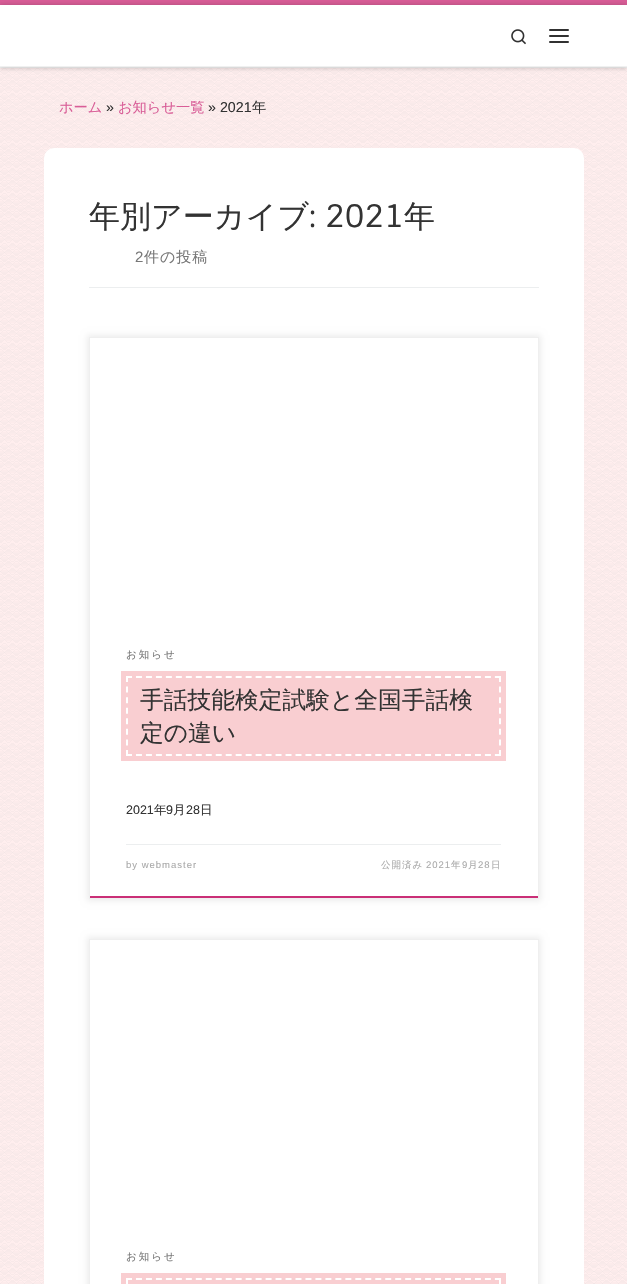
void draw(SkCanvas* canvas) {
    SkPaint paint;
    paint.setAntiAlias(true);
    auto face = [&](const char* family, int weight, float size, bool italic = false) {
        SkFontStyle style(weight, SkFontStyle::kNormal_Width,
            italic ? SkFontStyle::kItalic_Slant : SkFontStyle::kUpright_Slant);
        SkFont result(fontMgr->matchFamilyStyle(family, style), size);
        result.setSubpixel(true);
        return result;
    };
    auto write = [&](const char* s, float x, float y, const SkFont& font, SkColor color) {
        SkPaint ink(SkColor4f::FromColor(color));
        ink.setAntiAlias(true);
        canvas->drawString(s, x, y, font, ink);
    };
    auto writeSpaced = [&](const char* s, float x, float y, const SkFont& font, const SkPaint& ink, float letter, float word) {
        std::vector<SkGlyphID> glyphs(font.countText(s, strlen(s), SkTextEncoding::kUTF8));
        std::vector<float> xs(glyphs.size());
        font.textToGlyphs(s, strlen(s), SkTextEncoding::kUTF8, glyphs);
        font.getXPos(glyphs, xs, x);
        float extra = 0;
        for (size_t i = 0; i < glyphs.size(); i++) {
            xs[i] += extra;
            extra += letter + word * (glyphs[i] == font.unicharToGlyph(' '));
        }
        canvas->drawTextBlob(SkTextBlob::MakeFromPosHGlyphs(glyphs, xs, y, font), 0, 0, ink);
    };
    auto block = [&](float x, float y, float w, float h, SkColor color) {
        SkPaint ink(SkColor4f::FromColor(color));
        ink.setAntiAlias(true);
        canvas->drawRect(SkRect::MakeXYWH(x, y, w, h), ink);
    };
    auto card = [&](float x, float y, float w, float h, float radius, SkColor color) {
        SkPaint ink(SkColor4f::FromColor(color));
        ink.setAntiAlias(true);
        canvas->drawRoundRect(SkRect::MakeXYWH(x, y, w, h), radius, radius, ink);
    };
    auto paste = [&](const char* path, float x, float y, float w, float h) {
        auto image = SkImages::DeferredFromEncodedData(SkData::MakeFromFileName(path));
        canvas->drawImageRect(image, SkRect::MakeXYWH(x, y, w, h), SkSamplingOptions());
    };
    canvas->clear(SK_ColorWHITE);
    block(0, 68, 627, 1216, SkColorSetRGB(255, 238, 238));
    paste("pic2.png", 0, 68, 627, 1216);
    canvas->save();
    canvas->clipRect(SkRect::MakeXYWH(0, 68, 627, 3));
    paint.setColor(SkColorSetARGB(20, 102, 102, 102));
    paint.setMaskFilter(SkMaskFilter::MakeBlur(kNormal_SkBlurStyle, 1));
    canvas->drawRect(SkRect::MakeXYWH(0, 2, 627, 68), paint);
    paint.setMaskFilter(nullptr);
    canvas->restore();
    block(0, 0, 627, 5, SkColorSetRGB(217, 93, 151));
    block(0, 67, 627, 1, SkColorSetRGB(239, 239, 239));
    canvas->save();
    canvas->clipPath(SkPathBuilder(SkPathFillType::kEvenOdd).moveTo(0, 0).lineTo(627, 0).lineTo(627, 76).lineTo(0, 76).close().moveTo(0, 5).lineTo(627, 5).lineTo(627, 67).lineTo(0, 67).close().detach(), true);
    paint.setColor(SkColorSetARGB(51, 0, 0, 0));
    paint.setMaskFilter(SkMaskFilter::MakeBlur(kNormal_SkBlurStyle, 2.5f));
    canvas->drawRect(SkRect::MakeXYWH(0, 5, 627, 62), paint);
    paint.setMaskFilter(nullptr);
    canvas->restore();
    paste("pic1.png", 511, 29, 15, 16);
    card(549, 29, 20, 2, 1, SkColorSetRGB(49, 49, 49));
    card(549, 35, 20, 2, 1, SkColorSetRGB(49, 49, 49));
    card(549, 41, 20, 2, 1, SkColorSetRGB(49, 49, 49));
    block(0, 66, 627, 1, SkColorSetRGB(240, 240, 240));
    auto kFont1 = face("WenQuanYi Zen Hei", 500, 14.25f);
    write("ホーム", 59, 112, kFont1, SkColorSetRGB(217, 93, 151));
    auto kFont2 = face("Liberation Sans", 400, 14.25f);
    write("»", 106, 112, kFont2, SkColorSetRGB(51, 51, 51));
    write("お知らせ一覧", 118, 112, kFont1, SkColorSetRGB(217, 93, 151));
    write("» 2021", 208, 112, kFont2, SkColorSetRGB(51, 51, 51));
    write("年", 252, 112, kFont1, SkColorSetRGB(51, 51, 51));
    card(44, 148, 540, 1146, 10, SK_ColorWHITE);
    auto kFont3 = face("WenQuanYi Zen Hei", 500, 31);
    write("年別アーカイブ", 89, 227, kFont3, SkColorSetRGB(51, 51, 51));
    auto kFont4 = face("Sintony", 400, 31);
    write(": 2021", 309, 227, kFont4, SkColorSetRGB(51, 51, 51));
    write("年", 404, 227, kFont3, SkColorSetRGB(51, 51, 51));
    auto kFont5 = face("Liberation Sans", 400, 15);
    paint.setColor(SkColorSetRGB(119, 119, 119));
    writeSpaced("2", 135, 262, kFont5, paint, 1, 0);
    auto kFont6 = face("WenQuanYi Zen Hei", 500, 15);
    writeSpaced("件の投稿", 144, 262, kFont6, paint, 1, 0);
    block(89, 287, 450, 1, SkColorSetRGB(236, 238, 239));
    canvas->save();
    canvas->clipPath(SkPathBuilder(SkPathFillType::kEvenOdd).moveTo(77, 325).lineTo(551, 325).lineTo(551, 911).lineTo(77, 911).close().moveTo(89, 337).lineTo(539, 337).lineTo(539, 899).lineTo(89, 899).close().detach(), true);
    paint.setColor(SkColorSetARGB(18, 0, 0, 0));
    paint.setMaskFilter(SkMaskFilter::MakeBlur(kNormal_SkBlurStyle, 3));
    canvas->drawRect(SkRect::MakeXYWH(87, 335, 454, 566), paint);
    paint.setMaskFilter(nullptr);
    canvas->restore();
    block(89, 896, 450, 2, SkColorSetRGB(202, 47, 119));
    paint.setStyle(SkPaint::kStroke_Style);
    paint.setStrokeWidth(5);
    paint.setColor(SkColorSetRGB(249, 206, 209));
    canvas->drawRect(SkRect::MakeXYWH(123.5f, 673.5f, 380, 85), paint);
    block(126, 676, 375, 80, SkColorSetRGB(249, 206, 209));
    paint.setStrokeWidth(2);
    paint.setColor(SK_ColorWHITE);
    paint.setPathEffect(SkDashPathEffect::Make({{6, 3.97f}}, 0));
    canvas->drawPath(SkPathBuilder().moveTo(126, 677).lineTo(501, 677).detach(), paint);
    paint.setPathEffect(nullptr);
    paint.setPathEffect(SkDashPathEffect::Make({{6, 4.57f}}, 0));
    canvas->drawPath(SkPathBuilder().moveTo(500, 676).lineTo(500, 756).detach(), paint);
    paint.setPathEffect(nullptr);
    paint.setPathEffect(SkDashPathEffect::Make({{6, 3.97f}}, 0));
    canvas->drawPath(SkPathBuilder().moveTo(126, 755).lineTo(501, 755).detach(), paint);
    paint.setPathEffect(nullptr);
    paint.setPathEffect(SkDashPathEffect::Make({{6, 4.57f}}, 0));
    canvas->drawPath(SkPathBuilder().moveTo(127, 676).lineTo(127, 756).detach(), paint);
    paint.setPathEffect(nullptr);
    paint.setStrokeWidth(1);
    paint.setColor(SkColorSetRGB(239, 239, 239));
    canvas->drawRect(SkRect::MakeXYWH(89.5f, 337.5f, 449, 561), paint);
    auto kFont7 = face("WenQuanYi Zen Hei", 500, 10.5f);
    paint.setStyle(SkPaint::kFill_Style);
    paint.setColor(SkColorSetRGB(119, 119, 119));
    writeSpaced("お知らせ", 126, 658, kFont7, paint, 2, 0);
    auto kFont8 = face("WenQuanYi Zen Hei", 500, 23.75f);
    write("手話技能検定試験と全国手話検", 140, 708, kFont8, SkColorSetRGB(51, 51, 51));
    write("定の違い", 140, 741, kFont8, SkColorSetRGB(51, 51, 51));
    auto kFont9 = face("Liberation Sans", 400, 12.5f);
    write("2021", 126, 814, kFont9, SkColorSetRGB(51, 51, 51));
    auto kFont10 = face("WenQuanYi Zen Hei", 500, 12.5f);
    write("年", 154, 814, kFont10, SkColorSetRGB(51, 51, 51));
    write("9", 166, 814, kFont9, SkColorSetRGB(51, 51, 51));
    write("月", 173, 814, kFont10, SkColorSetRGB(51, 51, 51));
    write("28", 186, 814, kFont9, SkColorSetRGB(51, 51, 51));
    write("日", 200, 814, kFont10, SkColorSetRGB(51, 51, 51));
    block(126, 844, 375, 1, SkColorSetRGB(236, 238, 239));
    auto kFont11 = face("Liberation Sans", 400, 9.5f);
    paint.setColor(SkColorSetRGB(170, 170, 170));
    writeSpaced("by webmaster", 126, 868, kFont11, paint, 1, 0);
    auto kFont12 = face("WenQuanYi Zen Hei", 500, 9.5f);
    writeSpaced("公開済み", 381, 868, kFont12, paint, 1, 0);
    writeSpaced("2021", 426, 868, kFont11, paint, 1, 0);
    writeSpaced("年", 451, 868, kFont12, paint, 1, 0);
    writeSpaced("9", 462, 868, kFont11, paint, 1, 0);
    writeSpaced("月", 468, 868, kFont12, paint, 1, 0);
    writeSpaced("28", 478, 868, kFont11, paint, 1, 0);
    writeSpaced("日", 491, 868, kFont12, paint, 1, 0);
    canvas->save();
    canvas->clipPath(SkPathBuilder(SkPathFillType::kEvenOdd).moveTo(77, 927).lineTo(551, 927).lineTo(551, 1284).lineTo(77, 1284).close().moveTo(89, 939).lineTo(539, 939).lineTo(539, 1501).lineTo(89, 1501).close().detach(), true);
    paint.setColor(SkColorSetARGB(18, 0, 0, 0));
    paint.setMaskFilter(SkMaskFilter::MakeBlur(kNormal_SkBlurStyle, 3));
    canvas->drawRect(SkRect::MakeXYWH(87, 937, 454, 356), paint);
    paint.setMaskFilter(nullptr);
    canvas->restore();
    paint.setStyle(SkPaint::kStroke_Style);
    paint.setStrokeWidth(5);
    paint.setColor(SkColorSetRGB(249, 206, 209));
    canvas->drawRect(SkRect::MakeXYWH(123.5f, 1275.5f, 380, 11), paint);
    block(126, 1278, 375, 6, SkColorSetRGB(249, 206, 209));
    paint.setStrokeWidth(2);
    paint.setColor(SK_ColorWHITE);
    paint.setPathEffect(SkDashPathEffect::Make({{6, 3.97f}}, 0));
    canvas->drawPath(SkPathBuilder().moveTo(126, 1279).lineTo(501, 1279).detach(), paint);
    paint.setPathEffect(nullptr);
    paint.setPathEffect(SkDashPathEffect::Make({{6, 4.57f}}, 0));
    canvas->drawPath(SkPathBuilder().moveTo(500, 1278).lineTo(500, 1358).detach(), paint);
    paint.setPathEffect(nullptr);
    paint.setPathEffect(SkDashPathEffect::Make({{6, 4.57f}}, 0));
    canvas->drawPath(SkPathBuilder().moveTo(127, 1278).lineTo(127, 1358).detach(), paint);
    paint.setPathEffect(nullptr);
    paint.setStrokeWidth(1);
    paint.setColor(SkColorSetRGB(239, 239, 239));
    canvas->drawRect(SkRect::MakeXYWH(89.5f, 939.5f, 449, 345), paint);
    paint.setStyle(SkPaint::kFill_Style);
    paint.setColor(SkColorSetRGB(119, 119, 119));
    writeSpaced("お知らせ", 126, 1260, kFont7, paint, 2, 0);
}
